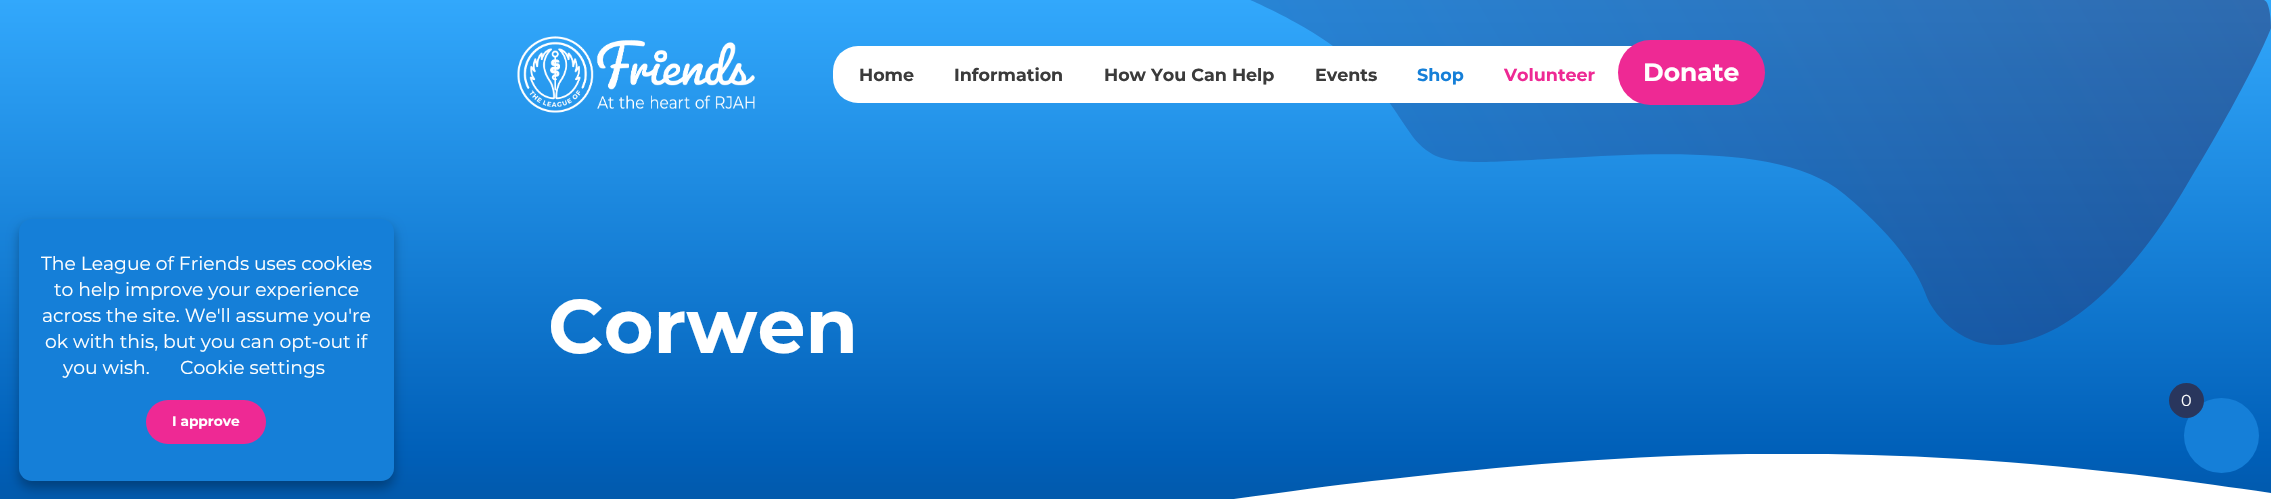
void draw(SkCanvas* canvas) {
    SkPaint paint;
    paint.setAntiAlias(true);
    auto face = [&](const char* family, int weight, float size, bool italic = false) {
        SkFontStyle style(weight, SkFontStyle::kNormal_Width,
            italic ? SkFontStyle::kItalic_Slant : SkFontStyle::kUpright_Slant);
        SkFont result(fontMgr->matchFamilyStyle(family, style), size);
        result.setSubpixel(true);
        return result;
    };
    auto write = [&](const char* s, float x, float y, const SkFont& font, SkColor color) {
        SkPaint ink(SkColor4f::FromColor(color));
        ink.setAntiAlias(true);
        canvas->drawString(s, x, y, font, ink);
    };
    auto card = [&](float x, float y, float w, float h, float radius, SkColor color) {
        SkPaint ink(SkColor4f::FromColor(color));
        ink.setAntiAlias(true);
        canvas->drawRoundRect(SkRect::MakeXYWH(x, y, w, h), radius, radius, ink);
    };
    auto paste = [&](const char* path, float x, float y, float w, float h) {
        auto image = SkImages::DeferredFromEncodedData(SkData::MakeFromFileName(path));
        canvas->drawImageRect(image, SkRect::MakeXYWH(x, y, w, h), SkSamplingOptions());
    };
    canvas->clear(SK_ColorWHITE);
    {
        const SkColor colors[] = {SkColorSetRGB(50, 168, 252), SkColorSetRGB(0, 95, 184), SkColorSetRGB(5, 80, 152)};
        const float stops[] = {0, 0.79f, 1};
        const SkPoint ends[] = {{1136, 0}, {1136, 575}};
        paint.setShader(SkGradientShader::MakeLinear(ends, colors, stops, 3, SkTileMode::kClamp));
        paint.setAlpha(255);
    }
    canvas->drawRect(SkRect::MakeXYWH(0, 0, 2271, 499), paint);
    paste("pic1.png", 517, 36, 238, 77);
    {
        const SkColor colors[] = {SkColorSetARGB(115, 42, 33, 83), SkColorSetARGB(115, 27, 89, 166)};
        const float stops[] = {0, 1};
        const SkPoint ends[] = {{2184, -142}, {1422, 298}};
        paint.setShader(SkGradientShader::MakeLinear(ends, colors, stops, 2, SkTileMode::kClamp));
        paint.setAlpha(255);
    }
    canvas->drawPath(SkPathBuilder().moveTo(2264, 0).lineTo(1250, 0).cubicTo(1250, 0, 1322, 30, 1361, 69).cubicTo(1400, 109, 1406, 135, 1426, 150).cubicTo(1447, 166, 1476, 163, 1565, 158).cubicTo(1655, 153, 1787, 145, 1844, 194).cubicTo(1902, 242, 1920, 278, 1926, 295).cubicTo(1932, 312, 1959, 347, 2001, 345).cubicTo(2043, 343, 2109, 313, 2182, 193).cubicTo(2255, 73, 2271, 28, 2271, 28).cubicTo(2271, 28, 2271, 2, 2264, 0).close().detach(), paint);
    card(833, 46, 928, 57, 25, SK_ColorWHITE);
    auto kFont1 = face("Montserrat", 100, 17.5f);
    write("Home", 859, 81, kFont1, SkColorSetRGB(59, 59, 59));
    write("Information", 954, 81, kFont1, SkColorSetRGB(59, 59, 59));
    write("How You Can Help", 1104, 81, kFont1, SkColorSetRGB(59, 59, 59));
    write("Events", 1315, 81, kFont1, SkColorSetRGB(59, 59, 59));
    write("Shop", 1417, 81, kFont1, SkColorSetRGB(21, 127, 216));
    write("Volunteer", 1504, 81, kFont1, SkColorSetRGB(238, 41, 148));
    card(1618, 40, 147, 65, 32.5f, SkColorSetRGB(238, 41, 148));
    auto kFont2 = face("Montserrat", 100, 25);
    write("Donate", 1643, 81, kFont2, SK_ColorWHITE);
    paint.setShader(nullptr);
    paint.setColor(SkColorSetARGB(77, 0, 0, 0));
    paint.setMaskFilter(SkMaskFilter::MakeBlur(kNormal_SkBlurStyle, 6));
    canvas->drawRoundRect(SkRect::MakeXYWH(19, 225, 375, 263), 13, 13, paint);
    paint.setMaskFilter(nullptr);
    card(19, 219, 375, 262, 13, SkColorSetRGB(21, 127, 216));
    auto kFont3 = face("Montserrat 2", 100, 18.75f);
    write("The League of Friends uses cookies", 41, 270, kFont3, SK_ColorWHITE);
    write("to help improve your experience", 54, 296, kFont3, SK_ColorWHITE);
    write("across the site. We'll assume you're", 42, 322, kFont3, SK_ColorWHITE);
    write("ok with this, but you can opt-out if", 45, 348, kFont3, SK_ColorWHITE);
    write("you wish.", 63, 374, kFont3, SK_ColorWHITE);
    write("Cookie settings", 180, 374, kFont3, SK_ColorWHITE);
    card(146, 400, 120, 44, 22, SkColorSetRGB(238, 41, 148));
    auto kFont4 = face("Montserrat", 100, 13.75f);
    write("I approve", 172, 426, kFont4, SK_ColorWHITE);
    auto kFont5 = face("Montserrat", 100, 76);
    write("Corwen", 548, 353, kFont5, SK_ColorWHITE);
    canvas->save();
    canvas->clipRect(SkRect::MakeXYWH(0, 454, 2271, 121));
    paint.setColor(SK_ColorWHITE);
    canvas->drawPath(SkPathBuilder().moveTo(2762, 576).lineTo(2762, 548).cubicTo(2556, 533, 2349, 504, 2215, 485).cubicTo(1829, 430, 1565, 460, 1372, 481).cubicTo(1178, 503, 754, 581, 178, 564).cubicTo(-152, 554, -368, 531, -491, 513).lineTo(-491, 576).close().detach(), paint);
    canvas->restore();
    paint.setColor(SkColorSetRGB(21, 127, 216));
    canvas->drawCircle(2221.5f, 435.5f, 37.5f, paint);
    paint.setColor(SkColorSetRGB(41, 54, 93));
    canvas->drawCircle(2186.5f, 400.5f, 17.5f, paint);
    auto kFont6 = face("Montserrat 2", 100, 16);
    write("0", 2181, 406, kFont6, SK_ColorWHITE);
}
